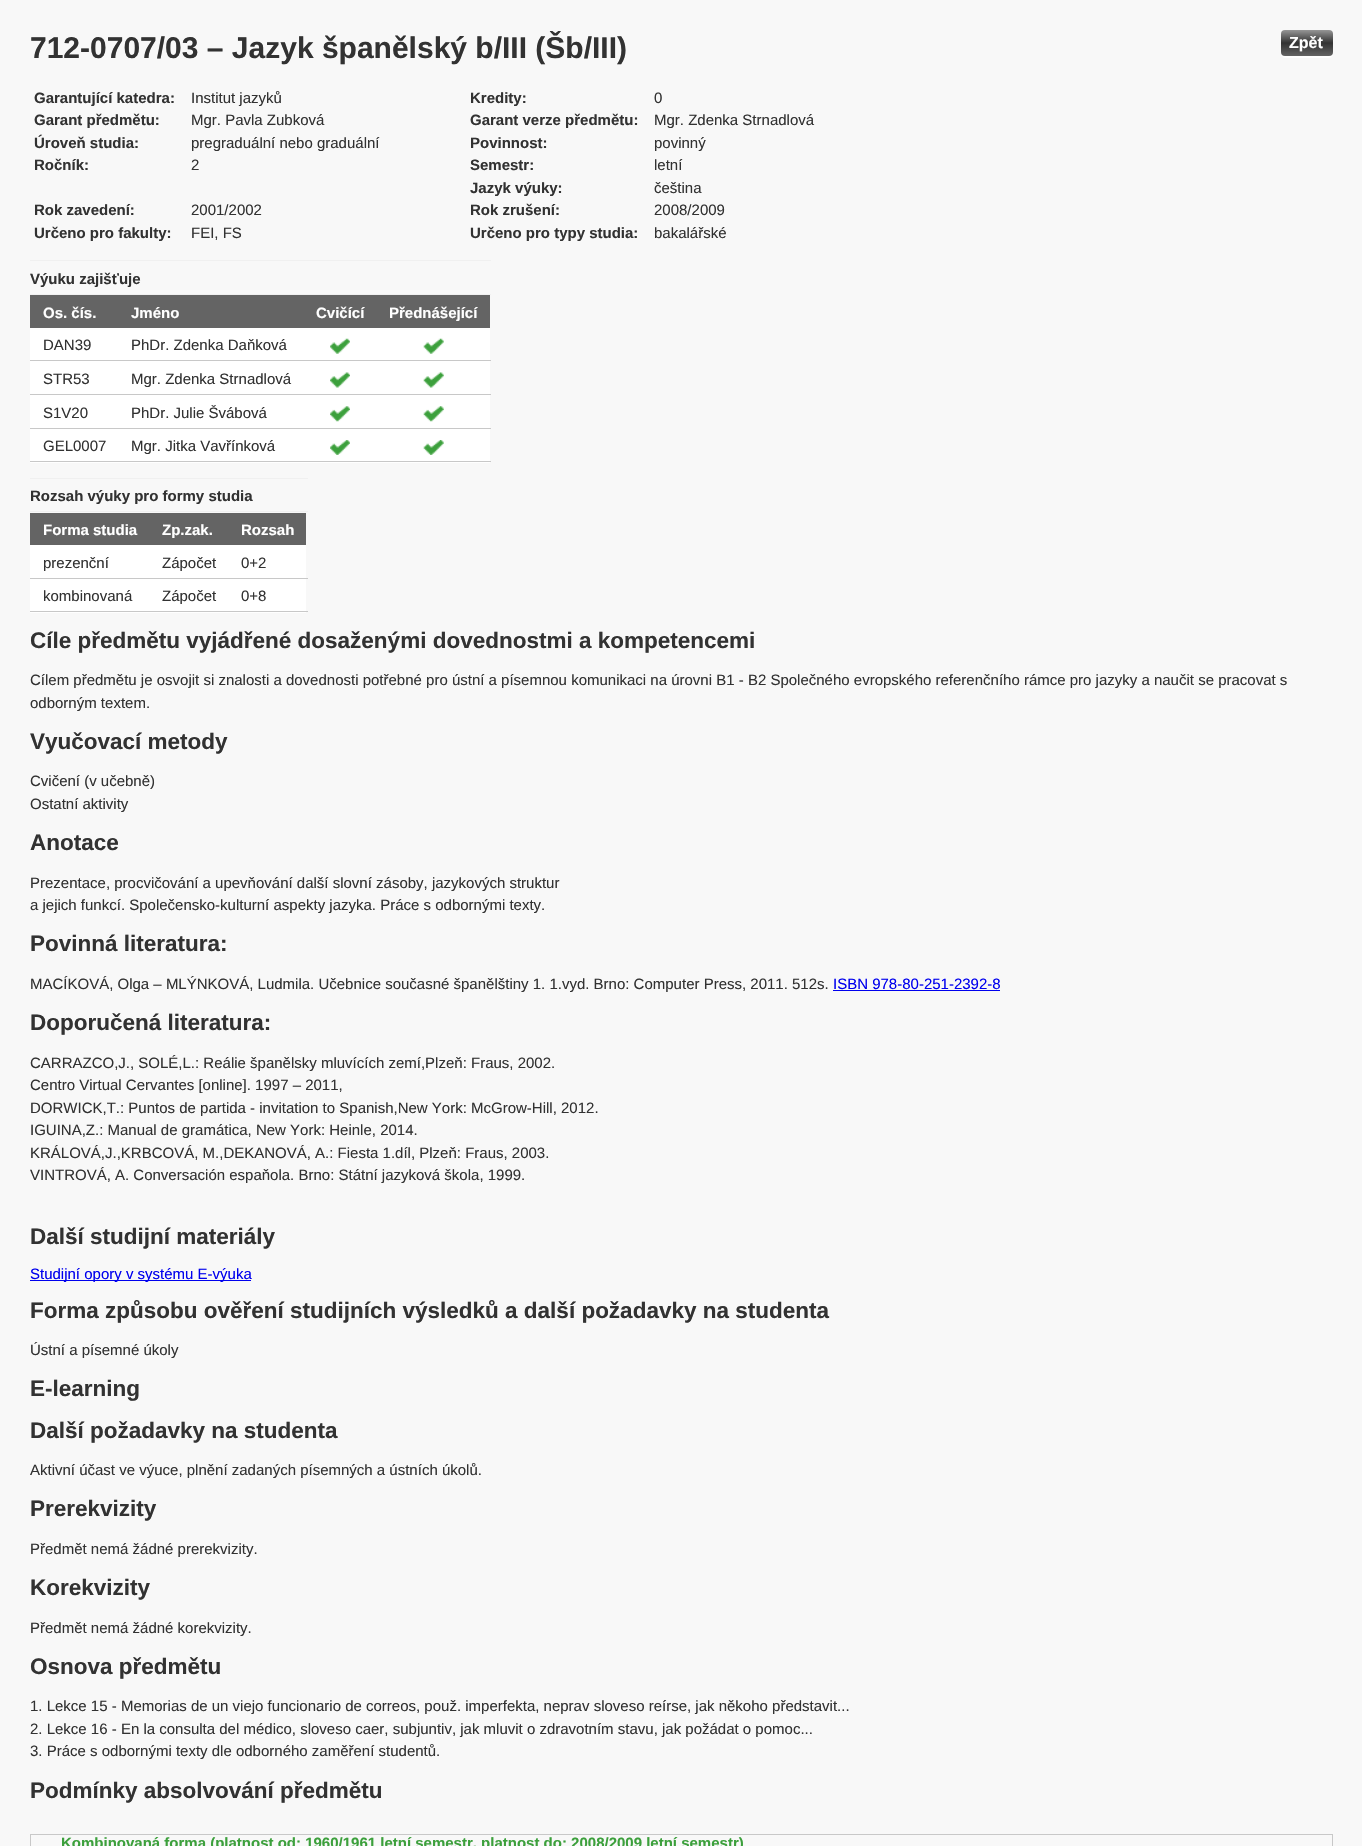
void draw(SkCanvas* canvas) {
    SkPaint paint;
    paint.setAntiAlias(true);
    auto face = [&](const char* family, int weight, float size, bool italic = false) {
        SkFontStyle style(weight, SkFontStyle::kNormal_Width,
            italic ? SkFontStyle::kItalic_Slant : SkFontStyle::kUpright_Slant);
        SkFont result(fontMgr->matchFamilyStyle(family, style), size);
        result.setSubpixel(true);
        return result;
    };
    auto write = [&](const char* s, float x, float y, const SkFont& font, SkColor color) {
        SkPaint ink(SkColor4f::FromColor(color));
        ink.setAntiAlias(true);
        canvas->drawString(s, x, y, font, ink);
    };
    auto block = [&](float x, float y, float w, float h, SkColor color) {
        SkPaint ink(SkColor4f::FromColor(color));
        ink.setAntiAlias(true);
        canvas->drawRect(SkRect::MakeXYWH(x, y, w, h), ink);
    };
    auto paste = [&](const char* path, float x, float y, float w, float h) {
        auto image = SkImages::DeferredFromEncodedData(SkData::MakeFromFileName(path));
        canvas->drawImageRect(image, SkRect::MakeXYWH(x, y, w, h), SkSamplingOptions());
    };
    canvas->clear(SkColorSetRGB(248, 248, 248));
    auto kFont1 = face("Liberation Sans", 700, 30);
    write("712-0707/03 – Jazyk španělský b/III (Šb/III)", 30, 58, kFont1, SkColorSetRGB(50, 50, 50));
    auto kFont2 = face("Liberation Sans", 700, 15);
    write("Garantující katedra:", 34, 103, kFont2, SkColorSetRGB(50, 50, 50));
    auto kFont3 = face("Liberation Sans", 400, 15);
    write("Institut jazyků", 191, 103, kFont3, SkColorSetRGB(50, 50, 50));
    write("Kredity:", 470, 103, kFont2, SkColorSetRGB(50, 50, 50));
    write("0", 654, 103, kFont3, SkColorSetRGB(50, 50, 50));
    write("Garant předmětu:", 34, 125, kFont2, SkColorSetRGB(50, 50, 50));
    write("Mgr. Pavla Zubková", 191, 125, kFont3, SkColorSetRGB(50, 50, 50));
    write("Garant verze předmětu:", 470, 125, kFont2, SkColorSetRGB(50, 50, 50));
    write("Mgr. Zdenka Strnadlová", 654, 125, kFont3, SkColorSetRGB(50, 50, 50));
    write("Úroveň studia:", 34, 148, kFont2, SkColorSetRGB(50, 50, 50));
    write("pregraduální nebo graduální", 191, 148, kFont3, SkColorSetRGB(50, 50, 50));
    write("Povinnost:", 470, 148, kFont2, SkColorSetRGB(50, 50, 50));
    write("povinný", 654, 148, kFont3, SkColorSetRGB(50, 50, 50));
    write("Ročník:", 34, 170, kFont2, SkColorSetRGB(50, 50, 50));
    write("2", 191, 170, kFont3, SkColorSetRGB(50, 50, 50));
    write("Semestr:", 470, 170, kFont2, SkColorSetRGB(50, 50, 50));
    write("letní", 654, 170, kFont3, SkColorSetRGB(50, 50, 50));
    write("Jazyk výuky:", 470, 193, kFont2, SkColorSetRGB(50, 50, 50));
    write("čeština", 654, 193, kFont3, SkColorSetRGB(50, 50, 50));
    write("Rok zavedení:", 34, 215, kFont2, SkColorSetRGB(50, 50, 50));
    write("2001/2002", 191, 215, kFont3, SkColorSetRGB(50, 50, 50));
    write("Rok zrušení:", 470, 215, kFont2, SkColorSetRGB(50, 50, 50));
    write("2008/2009", 654, 215, kFont3, SkColorSetRGB(50, 50, 50));
    write("Určeno pro fakulty:", 34, 238, kFont2, SkColorSetRGB(50, 50, 50));
    write("FEI, FS", 191, 238, kFont3, SkColorSetRGB(50, 50, 50));
    write("Určeno pro typy studia:", 470, 238, kFont2, SkColorSetRGB(50, 50, 50));
    write("bakalářské", 654, 238, kFont3, SkColorSetRGB(50, 50, 50));
    block(30, 260, 461, 1, SkColorSetRGB(240, 240, 240));
    write("Výuku zajišťuje", 30, 284, kFont2, SkColorSetRGB(50, 50, 50));
    block(30, 294, 461, 1, SkColorSetRGB(240, 240, 240));
    block(30, 295, 460, 33, SkColorSetRGB(100, 100, 100));
    write("Os. čís.", 43, 318, kFont2, SK_ColorWHITE);
    write("Jméno", 131, 318, kFont2, SK_ColorWHITE);
    write("Cvičící", 316, 318, kFont2, SK_ColorWHITE);
    write("Přednášející", 389, 318, kFont2, SK_ColorWHITE);
    block(30, 328, 460, 32, SK_ColorWHITE);
    block(30, 360, 461, 1, SkColorSetRGB(200, 200, 200));
    paste("pic1.png", 423, 338, 21, 16);
    write("DAN39", 43, 350, kFont3, SkColorSetRGB(50, 50, 50));
    write("PhDr. Zdenka Daňková", 131, 350, kFont3, SkColorSetRGB(50, 50, 50));
    paste("pic2.png", 330, 338, 20, 16);
    block(30, 361, 460, 33, SK_ColorWHITE);
    block(30, 394, 461, 1, SkColorSetRGB(200, 200, 200));
    paste("pic3.png", 423, 372, 21, 16);
    write("STR53", 43, 384, kFont3, SkColorSetRGB(50, 50, 50));
    write("Mgr. Zdenka Strnadlová", 131, 384, kFont3, SkColorSetRGB(50, 50, 50));
    paste("pic4.png", 330, 372, 20, 16);
    block(30, 395, 460, 33, SK_ColorWHITE);
    write("PhDr. Julie Švábová", 131, 418, kFont3, SkColorSetRGB(50, 50, 50));
    block(30, 428, 461, 1, SkColorSetRGB(200, 200, 200));
    paste("pic5.png", 423, 406, 21, 16);
    write("S1V20", 43, 418, kFont3, SkColorSetRGB(50, 50, 50));
    paste("pic6.png", 330, 406, 20, 16);
    block(30, 429, 460, 34, SK_ColorWHITE);
    write("Mgr. Jitka Vavřínková", 131, 451, kFont3, SkColorSetRGB(50, 50, 50));
    block(30, 461, 461, 1, SkColorSetRGB(200, 200, 200));
    paste("pic7.png", 423, 440, 21, 15);
    write("GEL0007", 43, 451, kFont3, SkColorSetRGB(50, 50, 50));
    paste("pic8.png", 330, 440, 20, 15);
    block(30, 478, 278, 1, SkColorSetRGB(240, 240, 240));
    write("Rozsah výuky pro formy studia", 30, 501, kFont2, SkColorSetRGB(50, 50, 50));
    block(30, 511, 278, 1, SkColorSetRGB(240, 240, 240));
    block(30, 513, 276, 32, SkColorSetRGB(100, 100, 100));
    write("Forma studia", 43, 535, kFont2, SK_ColorWHITE);
    write("Zp.zak.", 162, 535, kFont2, SK_ColorWHITE);
    write("Rozsah", 241, 535, kFont2, SK_ColorWHITE);
    block(30, 545, 276, 33, SK_ColorWHITE);
    write("prezenční", 43, 568, kFont3, SkColorSetRGB(50, 50, 50));
    write("Zápočet", 162, 568, kFont3, SkColorSetRGB(50, 50, 50));
    block(30, 578, 278, 1, SkColorSetRGB(200, 200, 200));
    write("0+2", 241, 568, kFont3, SkColorSetRGB(50, 50, 50));
    block(30, 579, 276, 34, SK_ColorWHITE);
    write("kombinovaná", 43, 601, kFont3, SkColorSetRGB(50, 50, 50));
    write("Zápočet", 162, 601, kFont3, SkColorSetRGB(50, 50, 50));
    block(30, 611, 278, 1, SkColorSetRGB(200, 200, 200));
    write("0+8", 241, 601, kFont3, SkColorSetRGB(50, 50, 50));
    auto kFont4 = face("Liberation Sans", 700, 22.5f);
    write("Cíle předmětu vyjádřené dosaženými dovednostmi a kompetencemi", 30, 648, kFont4, SkColorSetRGB(50, 50, 50));
    write("Cílem předmětu je osvojit si znalosti a dovednosti potřebné pro ústní a písemnou komunikaci na úrovni B1 - B2 Společného evropského referenčního rámce pro jazyky a naučit se pracovat s", 30, 685, kFont3, SkColorSetRGB(50, 50, 50));
    write("odborným textem.", 30, 708, kFont3, SkColorSetRGB(50, 50, 50));
    write("Vyučovací metody", 30, 749, kFont4, SkColorSetRGB(50, 50, 50));
    write("Cvičení (v učebně)", 30, 786, kFont3, SkColorSetRGB(50, 50, 50));
    write("Ostatní aktivity", 30, 809, kFont3, SkColorSetRGB(50, 50, 50));
    write("Anotace", 30, 850, kFont4, SkColorSetRGB(50, 50, 50));
    write("Prezentace, procvičování a upevňování další slovní zásoby, jazykových struktur", 30, 888, kFont3, SkColorSetRGB(50, 50, 50));
    write("a jejich funkcí. Společensko-kulturní aspekty jazyka. Práce s odbornými texty.", 30, 910, kFont3, SkColorSetRGB(50, 50, 50));
    write("Povinná literatura:", 30, 951, kFont4, SkColorSetRGB(50, 50, 50));
    write("MACÍKOVÁ, Olga – MLÝNKOVÁ, Ludmila. Učebnice současné španělštiny 1. 1.vyd. Brno: Computer Press, 2011. 512s.", 30, 989, kFont3, SkColorSetRGB(50, 50, 50));
    write("ISBN 978-80-251-2392-8", 833, 989, kFont3, SkColorSetRGB(0, 0, 238));
    block(833, 990, 167, 1, SkColorSetRGB(0, 0, 238));
    write("Doporučená literatura:", 30, 1030, kFont4, SkColorSetRGB(50, 50, 50));
    write("CARRAZCO,J., SOLÉ,L.: Reálie španělsky mluvících zemí,Plzeň: Fraus, 2002.", 30, 1068, kFont3, SkColorSetRGB(50, 50, 50));
    write("Centro Virtual Cervantes [online]. 1997 – 2011,", 30, 1090, kFont3, SkColorSetRGB(50, 50, 50));
    write("DORWICK,T.: Puntos de partida - invitation to Spanish,New York: McGrow-Hill, 2012.", 30, 1113, kFont3, SkColorSetRGB(50, 50, 50));
    write("IGUINA,Z.: Manual de gramática, New York: Heinle, 2014.", 30, 1135, kFont3, SkColorSetRGB(50, 50, 50));
    write("KRÁLOVÁ,J.,KRBCOVÁ, M.,DEKANOVÁ, A.: Fiesta 1.díl, Plzeň: Fraus, 2003.", 30, 1158, kFont3, SkColorSetRGB(50, 50, 50));
    write("VINTROVÁ, A. Conversación espaňola. Brno: Státní jazyková škola, 1999.", 30, 1180, kFont3, SkColorSetRGB(50, 50, 50));
    write("Další studijní materiály", 30, 1244, kFont4, SkColorSetRGB(50, 50, 50));
    block(30, 1280, 221, 1, SkColorSetRGB(0, 0, 238));
    write("Studijní opory v systému E-výuka", 30, 1279, kFont3, SkColorSetRGB(0, 0, 238));
    write("Forma způsobu ověření studijních výsledků a další požadavky na studenta", 30, 1318, kFont4, SkColorSetRGB(50, 50, 50));
    write("Ústní a písemné úkoly", 30, 1355, kFont3, SkColorSetRGB(50, 50, 50));
    write("E-learning", 30, 1396, kFont4, SkColorSetRGB(50, 50, 50));
    write("Další požadavky na studenta", 30, 1438, kFont4, SkColorSetRGB(50, 50, 50));
    write("Aktivní účast ve výuce, plnění zadaných písemných a ústních úkolů.", 30, 1475, kFont3, SkColorSetRGB(50, 50, 50));
    write("Prerekvizity", 30, 1516, kFont4, SkColorSetRGB(50, 50, 50));
    write("Předmět nemá žádné prerekvizity.", 30, 1554, kFont3, SkColorSetRGB(50, 50, 50));
    write("Korekvizity", 30, 1595, kFont4, SkColorSetRGB(50, 50, 50));
    write("Předmět nemá žádné korekvizity.", 30, 1633, kFont3, SkColorSetRGB(50, 50, 50));
    write("Osnova předmětu", 30, 1674, kFont4, SkColorSetRGB(50, 50, 50));
    write("1. Lekce 15 - Memorias de un viejo funcionario de correos, použ. imperfekta, neprav sloveso reírse, jak někoho představit...", 30, 1711, kFont3, SkColorSetRGB(50, 50, 50));
    write("2. Lekce 16 - En la consulta del médico, sloveso caer, subjuntiv, jak mluvit o zdravotním stavu, jak požádat o pomoc...", 30, 1734, kFont3, SkColorSetRGB(50, 50, 50));
    write("3. Práce s odbornými texty dle odborného zaměření studentů.", 30, 1756, kFont3, SkColorSetRGB(50, 50, 50));
    write("Podmínky absolvování předmětu", 30, 1798, kFont4, SkColorSetRGB(50, 50, 50));
    paint.setStyle(SkPaint::kStroke_Style);
    paint.setStrokeWidth(1);
    paint.setColor(SkColorSetRGB(200, 200, 200));
    canvas->drawRect(SkRect::MakeXYWH(30.5f, 1834.5f, 1302, 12), paint);
    write("Kombinovaná forma (platnost od: 1960/1961 letní semestr, platnost do: 2008/2009 letní semestr)", 61, 1848, kFont2, SkColorSetRGB(60, 160, 60));
    paint.setStyle(SkPaint::kFill_Style);
    paint.setColor(SK_ColorWHITE);
    canvas->drawPath(SkPathBuilder().moveTo(1281, 34).lineTo(1281, 48).cubicTo(1281, 59, 1281, 58, 1292, 58).lineTo(1322, 58).cubicTo(1333, 58, 1333, 59, 1333, 48).cubicTo(1333, 44, 1334, 36, 1332, 33).lineTo(1332, 46).cubicTo(1332, 57, 1333, 56, 1321, 56).lineTo(1292, 56).cubicTo(1281, 56, 1281, 57, 1281, 46).close().detach(), paint);
    {
        const SkColor colors[] = {SkColorSetRGB(150, 150, 150), SkColorSetRGB(50, 50, 50), SkColorSetRGB(100, 100, 100)};
        const float stops[] = {0, 0.5f, 1};
        const SkPoint ends[] = {{1307, 30}, {1307, 56}};
        paint.setShader(SkGradientShader::MakeLinear(ends, colors, stops, 3, SkTileMode::kClamp));
        paint.setAlpha(255);
    }
    canvas->drawRoundRect(SkRect::MakeXYWH(1281, 30, 52, 26), 4, 4, paint);
    auto kFont5 = face("Liberation Sans", 700, 16);
    write("Zpět", 1289, 48, kFont5, SK_ColorWHITE);
}
